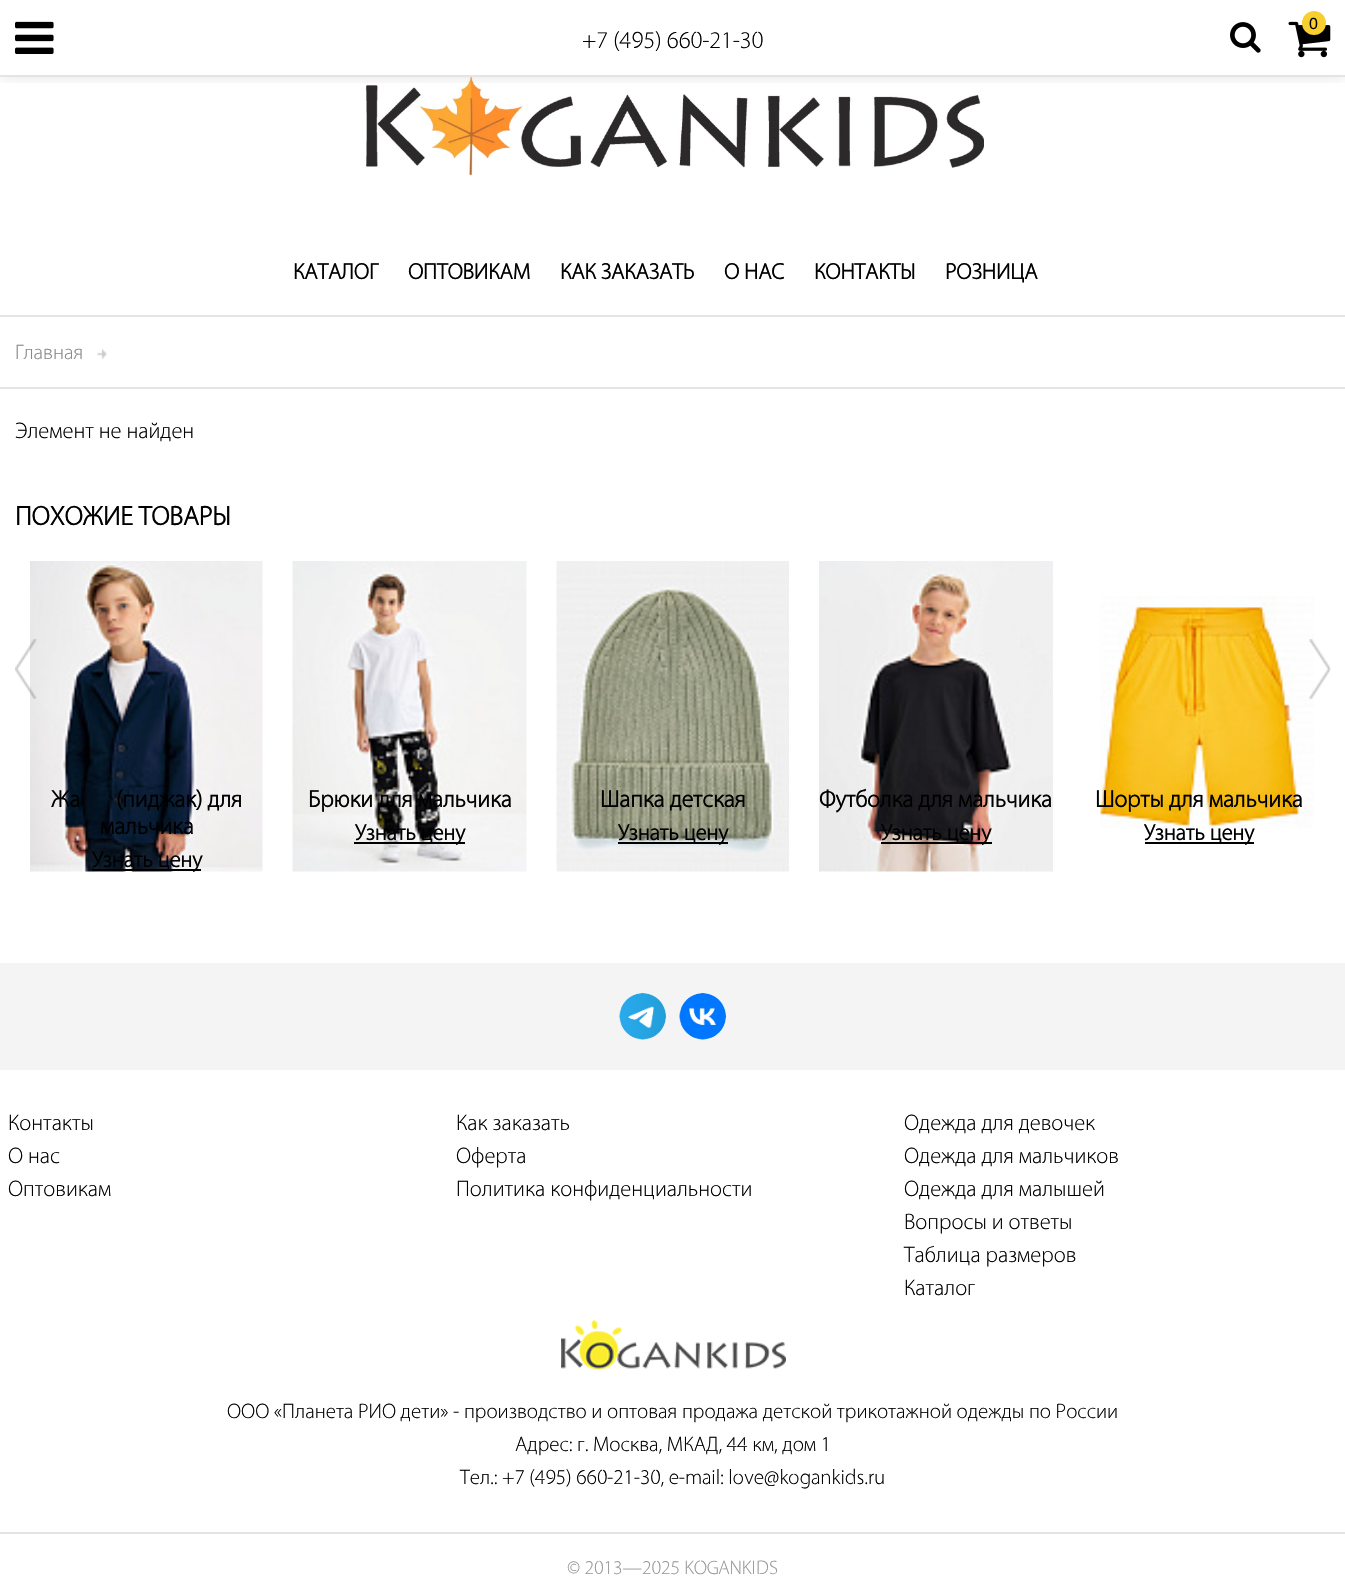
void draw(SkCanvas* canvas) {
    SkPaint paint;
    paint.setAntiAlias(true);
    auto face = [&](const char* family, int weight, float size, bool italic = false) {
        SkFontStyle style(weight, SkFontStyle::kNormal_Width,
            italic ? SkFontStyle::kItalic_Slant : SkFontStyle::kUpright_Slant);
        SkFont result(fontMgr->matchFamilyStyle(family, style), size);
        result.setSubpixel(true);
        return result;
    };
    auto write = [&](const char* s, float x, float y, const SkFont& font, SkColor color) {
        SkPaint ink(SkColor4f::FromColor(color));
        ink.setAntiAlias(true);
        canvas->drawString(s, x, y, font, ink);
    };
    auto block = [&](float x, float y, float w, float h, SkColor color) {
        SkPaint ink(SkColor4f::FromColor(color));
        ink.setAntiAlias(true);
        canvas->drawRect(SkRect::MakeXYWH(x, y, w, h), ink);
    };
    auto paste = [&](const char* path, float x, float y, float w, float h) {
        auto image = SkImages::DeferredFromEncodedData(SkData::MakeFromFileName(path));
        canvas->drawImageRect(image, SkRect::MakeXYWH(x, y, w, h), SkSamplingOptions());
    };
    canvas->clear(SK_ColorWHITE);
    paste("pic4.png", 365, 73, 619, 103);
    canvas->save();
    canvas->clipRect(SkRect::MakeXYWH(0, 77, 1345, 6));
    paint.setColor(SkColorSetARGB(26, 0, 0, 0));
    paint.setMaskFilter(SkMaskFilter::MakeBlur(kNormal_SkBlurStyle, 7.5f));
    canvas->drawRect(SkRect::MakeXYWH(0, 0, 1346, 77), paint);
    paint.setMaskFilter(nullptr);
    canvas->restore();
    block(470, 73, 2, 2, SkColorSetARGB(242, 255, 255, 255));
    block(0, 75, 1345, 2, SkColorSetRGB(228, 228, 228));
    paste("pic1.png", 15, 21, 39, 33);
    auto kFont1 = face("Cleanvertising", 300, 24);
    write("+7 (495) 660-21-30", 582, 48, kFont1, SK_ColorBLACK);
    paste("pic2.png", 1230, 22, 31, 31);
    paste("pic3.png", 1288, 21, 43, 37);
    paint.setColor(SkColorSetRGB(247, 207, 49));
    canvas->drawCircle(1314, 23, 12, paint);
    auto kFont2 = face("Liberation Sans", 400, 16);
    write("0", 1309, 29, kFont2, SK_ColorBLACK);
    block(0, 315, 1345, 2, SkColorSetRGB(228, 228, 228));
    auto kFont3 = face("Cleanvertising", 700, 22.5f);
    write("КАТАЛОГ", 293, 279, kFont3, SK_ColorBLACK);
    write("ОПТОВИКАМ", 408, 279, kFont3, SK_ColorBLACK);
    write("КАК ЗАКАЗАТЬ", 560, 279, kFont3, SK_ColorBLACK);
    write("О НАС", 724, 279, kFont3, SK_ColorBLACK);
    write("КОНТАКТЫ", 814, 279, kFont3, SK_ColorBLACK);
    write("РОЗНИЦА", 945, 279, kFont3, SK_ColorBLACK);
    block(0, 387, 1345, 2, SkColorSetRGB(228, 228, 228));
    auto kFont4 = face("Cleanvertising", 300, 21);
    write("Главная", 15, 359, kFont4, SkColorSetRGB(136, 136, 136));
    paste("pic5.png", 97, 349, 10, 10);
    auto kFont5 = face("Cleanvertising", 300, 22.5f);
    write("Элемент не найден", 15, 438, kFont5, SK_ColorBLACK);
    auto kFont6 = face("Cleanvertising", 700, 27);
    write("ПОХОЖИЕ ТОВАРЫ", 15, 525, kFont6, SK_ColorBLACK);
    paste("pic8.png", 30, 561, 233, 311);
    paste("pic6.png", 15, 639, 22, 60);
    paste("pic12.png", 1100, 596, 214, 232);
    paste("pic7.png", 1309, 639, 22, 60);
    auto kFont7 = face("Cleanvertising", 700, 24);
    write("Жа", 51, 807, kFont7, SK_ColorBLACK);
    write("(пиджак) для", 116, 807, kFont7, SK_ColorBLACK);
    write("мальчика", 100, 834, kFont7, SK_ColorBLACK);
    block(92, 869, 109, 2, SK_ColorBLACK);
    write("Узнать цену", 92, 867, kFont3, SK_ColorBLACK);
    paste("pic9.png", 292, 561, 235, 311);
    write("Брюки для мальчика", 308, 807, kFont7, SK_ColorBLACK);
    block(354, 842, 111, 2, SK_ColorBLACK);
    write("Узнать цену", 355, 840, kFont3, SK_ColorBLACK);
    paste("pic10.png", 556, 561, 233, 311);
    write("Шапка детская", 600, 807, kFont7, SK_ColorBLACK);
    block(618, 842, 110, 2, SK_ColorBLACK);
    write("Узнать цену", 618, 840, kFont3, SK_ColorBLACK);
    paste("pic11.png", 819, 561, 234, 311);
    write("Футболка для мальчика", 819, 807, kFont7, SK_ColorBLACK);
    block(881, 842, 111, 2, SK_ColorBLACK);
    write("Узнать цену", 881, 840, kFont3, SK_ColorBLACK);
    write("Шорты для мальчика", 1095, 807, kFont7, SK_ColorBLACK);
    block(1145, 842, 109, 2, SK_ColorBLACK);
    write("Узнать цену", 1144, 840, kFont3, SK_ColorBLACK);
    block(0, 963, 1345, 107, SkColorSetRGB(244, 244, 244));
    paste("pic13.png", 619, 993, 48, 47);
    paste("pic14.png", 679, 993, 48, 47);
    block(0, 1532, 1345, 2, SkColorSetRGB(228, 228, 228));
    write("Контакты", 8, 1130, kFont5, SK_ColorBLACK);
    write("О нас", 8, 1163, kFont5, SK_ColorBLACK);
    write("Оптовикам", 8, 1196, kFont5, SK_ColorBLACK);
    write("Как заказать", 456, 1130, kFont5, SK_ColorBLACK);
    write("Оферта", 456, 1163, kFont5, SK_ColorBLACK);
    write("Политика конфиденциальности", 456, 1196, kFont5, SK_ColorBLACK);
    write("Одежда для девочек", 904, 1130, kFont5, SK_ColorBLACK);
    write("Одежда для мальчиков", 904, 1163, kFont5, SK_ColorBLACK);
    write("Одежда для малышей", 904, 1196, kFont5, SK_ColorBLACK);
    write("Вопросы и ответы", 904, 1229, kFont5, SK_ColorBLACK);
    write("Таблица размеров", 904, 1262, kFont5, SK_ColorBLACK);
    write("Каталог", 904, 1295, kFont5, SK_ColorBLACK);
    paste("pic15.png", 561, 1320, 225, 50);
    write("ООО «Планета РИО дети» - производство и оптовая продажа детской трикотажной одежды по России", 227, 1418, kFont4, SK_ColorBLACK);
    write("Адрес: г. Москва, МКАД, 44 км, дом 1", 515, 1451, kFont4, SK_ColorBLACK);
    write("Тел.: +7 (495) 660-21-30, e-mail: love@kogankids.ru", 460, 1484, kFont4, SK_ColorBLACK);
    auto kFont8 = face("Cleanvertising", 300, 19.5f);
    write("© 2013—2025 KOGANKIDS", 567, 1574, kFont8, SkColorSetRGB(153, 153, 153));
}
